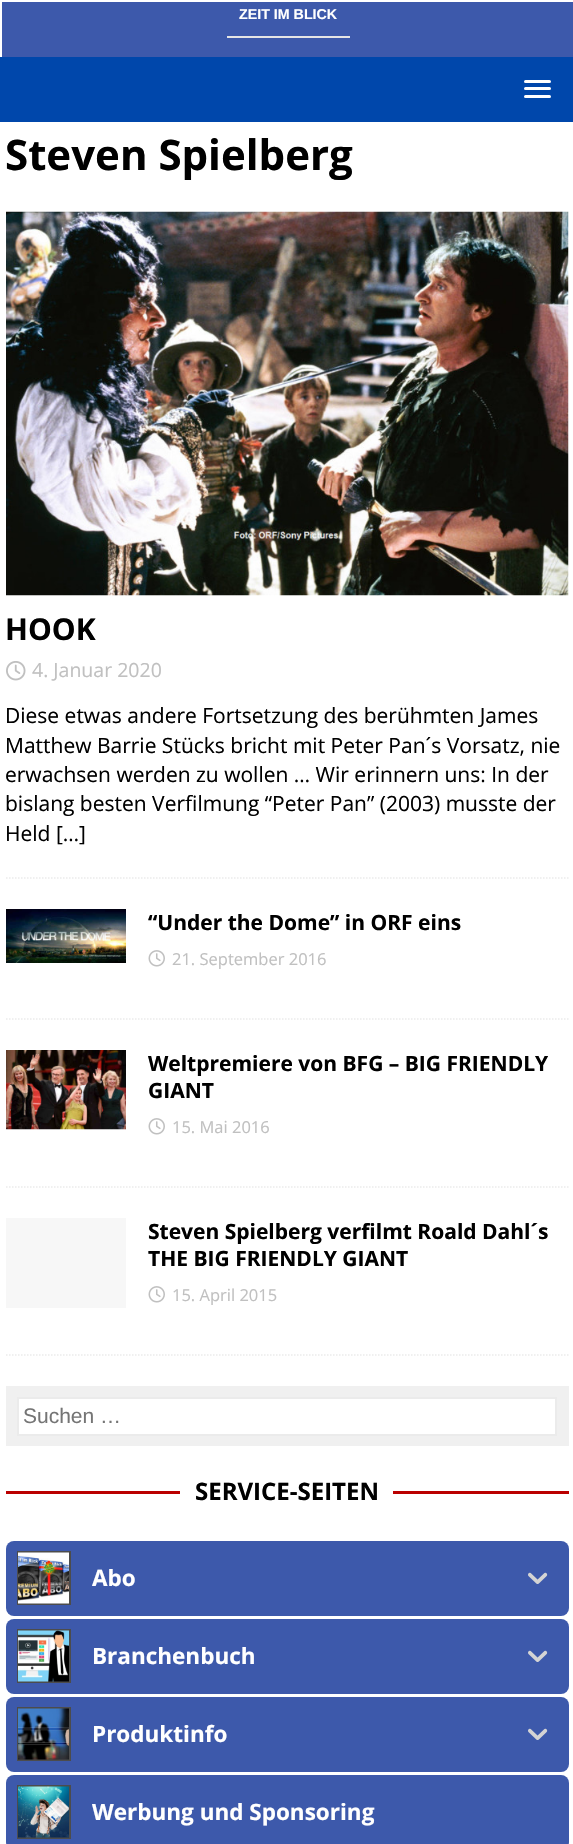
void draw(SkCanvas* canvas) {
    SkPaint paint;
    paint.setAntiAlias(true);
    auto face = [&](const char* family, int weight, float size, bool italic = false) {
        SkFontStyle style(weight, SkFontStyle::kNormal_Width,
            italic ? SkFontStyle::kItalic_Slant : SkFontStyle::kUpright_Slant);
        SkFont result(fontMgr->matchFamilyStyle(family, style), size);
        result.setSubpixel(true);
        return result;
    };
    auto write = [&](const char* s, float x, float y, const SkFont& font, SkColor color) {
        SkPaint ink(SkColor4f::FromColor(color));
        ink.setAntiAlias(true);
        canvas->drawString(s, x, y, font, ink);
    };
    auto block = [&](float x, float y, float w, float h, SkColor color) {
        SkPaint ink(SkColor4f::FromColor(color));
        ink.setAntiAlias(true);
        canvas->drawRect(SkRect::MakeXYWH(x, y, w, h), ink);
    };
    auto card = [&](float x, float y, float w, float h, float radius, SkColor color) {
        SkPaint ink(SkColor4f::FromColor(color));
        ink.setAntiAlias(true);
        canvas->drawRoundRect(SkRect::MakeXYWH(x, y, w, h), radius, radius, ink);
    };
    auto paste = [&](const char* path, float x, float y, float w, float h) {
        auto image = SkImages::DeferredFromEncodedData(SkData::MakeFromFileName(path));
        canvas->drawImageRect(image, SkRect::MakeXYWH(x, y, w, h), SkSamplingOptions());
    };
    canvas->clear(SkColorSetRGB(0, 71, 171));
    block(0, 0, 573, 2, SK_ColorWHITE);
    block(0, 0, 2, 57, SK_ColorWHITE);
    block(2, 2, 571, 55, SkColorSetRGB(61, 89, 171));
    auto kFont1 = face("Liberation Sans", 700, 14.25f);
    write("ZEIT IM BLICK", 239, 19, kFont1, SK_ColorWHITE);
    block(227, 36, 123, 2, SkColorSetRGB(229, 229, 229));
    card(524, 80, 27, 3, 1.5f, SK_ColorWHITE);
    card(524, 87, 27, 3, 1.5f, SK_ColorWHITE);
    card(524, 95, 27, 3, 1.5f, SK_ColorWHITE);
    block(0, 122, 573, 1722, SK_ColorWHITE);
    auto kFont2 = face("Open Sans", 700, 42);
    write("Steven Spielberg", 5, 170, kFont2, SK_ColorBLACK);
    paint.setStyle(SkPaint::kStroke_Style);
    paint.setStrokeWidth(1.5f);
    paint.setColor(SkColorSetRGB(235, 235, 235));
    paint.setPathEffect(SkDashPathEffect::Make({{1.5f, 1.5f}}, 0));
    canvas->drawPath(SkPathBuilder().moveTo(6, 878).lineTo(568.5f, 878).detach(), paint);
    paint.setPathEffect(nullptr);
    paste("pic1.png", 6, 211, 563, 385);
    auto kFont3 = face("Open Sans", 700, 30);
    write("HOOK", 5, 640, kFont3, SK_ColorBLACK);
    paste("pic2.png", 6, 661, 20, 20);
    auto kFont4 = face("Open Sans", 400, 19.5f);
    write("4. Januar 2020", 32, 677, kFont4, SkColorSetRGB(192, 192, 192));
    auto kFont5 = face("Open Sans", 400, 21);
    write("Diese etwas andere Fortsetzung des berühmten James", 5, 723, kFont5, SK_ColorBLACK);
    write("Matthew Barrie Stücks bricht mit Peter Pan´s Vorsatz, nie", 5, 753, kFont5, SK_ColorBLACK);
    write("erwachsen werden zu wollen … Wir erinnern uns: In der", 5, 782, kFont5, SK_ColorBLACK);
    write("bislang besten Verfilmung “Peter Pan” (2003) musste der", 5, 811, kFont5, SK_ColorBLACK);
    write("Held […]", 5, 841, kFont5, SK_ColorBLACK);
    paint.setPathEffect(SkDashPathEffect::Make({{1.5f, 1.5f}}, 0));
    canvas->drawPath(SkPathBuilder().moveTo(6, 1019).lineTo(568.5f, 1019).detach(), paint);
    paint.setPathEffect(nullptr);
    paste("pic3.png", 6, 909, 120, 54);
    auto kFont6 = face("Open Sans", 700, 21);
    write("“Under the Dome” in ORF eins", 148, 930, kFont6, SK_ColorBLACK);
    paste("pic4.png", 148, 950, 17, 17);
    auto kFont7 = face("Open Sans", 400, 16.5f);
    write("21. September 2016", 172, 965, kFont7, SkColorSetRGB(192, 192, 192));
    paint.setPathEffect(SkDashPathEffect::Make({{1.5f, 1.5f}}, 0));
    canvas->drawPath(SkPathBuilder().moveTo(6, 1187).lineTo(568.5f, 1187).detach(), paint);
    paint.setPathEffect(nullptr);
    paste("pic5.png", 6, 1050, 120, 80);
    write("Weltpremiere von BFG – BIG FRIENDLY", 148, 1071, kFont6, SK_ColorBLACK);
    write("GIANT", 148, 1098, kFont6, SK_ColorBLACK);
    paste("pic4.png", 148, 1118, 17, 17);
    write("15. Mai 2016", 172, 1133, kFont7, SkColorSetRGB(192, 192, 192));
    paint.setPathEffect(SkDashPathEffect::Make({{1.5f, 1.5f}}, 0));
    canvas->drawPath(SkPathBuilder().moveTo(6, 1355).lineTo(568.5f, 1355).detach(), paint);
    paint.setPathEffect(nullptr);
    block(6, 1218, 120, 90, SkColorSetRGB(247, 247, 247));
    write("Steven Spielberg verfilmt Roald Dahl´s", 148, 1239, kFont6, SK_ColorBLACK);
    write("THE BIG FRIENDLY GIANT", 148, 1266, kFont6, SK_ColorBLACK);
    paste("pic4.png", 148, 1286, 17, 17);
    write("15. April 2015", 172, 1301, kFont7, SkColorSetRGB(192, 192, 192));
    block(6, 1386, 563, 60, SkColorSetRGB(240, 240, 240));
    paint.setStyle(SkPaint::kFill_Style);
    paint.setColor(SK_ColorWHITE);
    canvas->drawRect(SkRect::MakeXYWH(18, 1398, 538, 37), paint);
    paint.setStyle(SkPaint::kStroke_Style);
    paint.setStrokeWidth(2);
    paint.setColor(SkColorSetRGB(235, 235, 235));
    canvas->drawRect(SkRect::MakeXYWH(18, 1398, 538, 37), paint);
    auto kFont8 = face("Liberation Sans", 400, 21);
    write("Suchen …", 23, 1423, kFont8, SkColorSetRGB(117, 117, 117));
    block(6, 1491, 563, 3, SkColorSetRGB(186, 0, 0));
    block(180, 1491, 213, 3, SK_ColorWHITE);
    auto kFont9 = face("Open Sans", 700, 24);
    write("SERVICE-SEITEN", 195, 1500, kFont9, SK_ColorBLACK);
    card(6, 1541, 563, 75, 8, SkColorSetRGB(61, 89, 171));
    block(17, 1551, 54, 54, SkColorSetRGB(76, 76, 76));
    paste("pic6.png", 18, 1552, 51, 52);
    auto kFont10 = face("Open Sans", 700, 22.5f);
    write("Abo", 92, 1586, kFont10, SK_ColorWHITE);
    paste("pic7.png", 528, 1572, 20, 12);
    card(6, 1619, 563, 75, 8, SkColorSetRGB(61, 89, 171));
    block(17, 1629, 54, 54, SkColorSetRGB(76, 76, 76));
    paste("pic8.png", 18, 1630, 51, 52);
    write("Branchenbuch", 92, 1664, kFont10, SK_ColorWHITE);
    paste("pic7.png", 528, 1650, 20, 12);
    card(6, 1697, 563, 75, 8, SkColorSetRGB(61, 89, 171));
    block(17, 1707, 54, 54, SkColorSetRGB(76, 76, 76));
    paste("pic9.png", 18, 1708, 51, 52);
    write("Produktinfo", 92, 1742, kFont10, SK_ColorWHITE);
    paste("pic7.png", 528, 1728, 20, 12);
    card(6, 1775, 563, 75, 8, SkColorSetRGB(61, 89, 171));
    block(17, 1785, 54, 54, SkColorSetRGB(76, 76, 76));
    paste("pic10.png", 18, 1786, 51, 52);
    write("Werbung und Sponsoring", 92, 1820, kFont10, SK_ColorWHITE);
}
